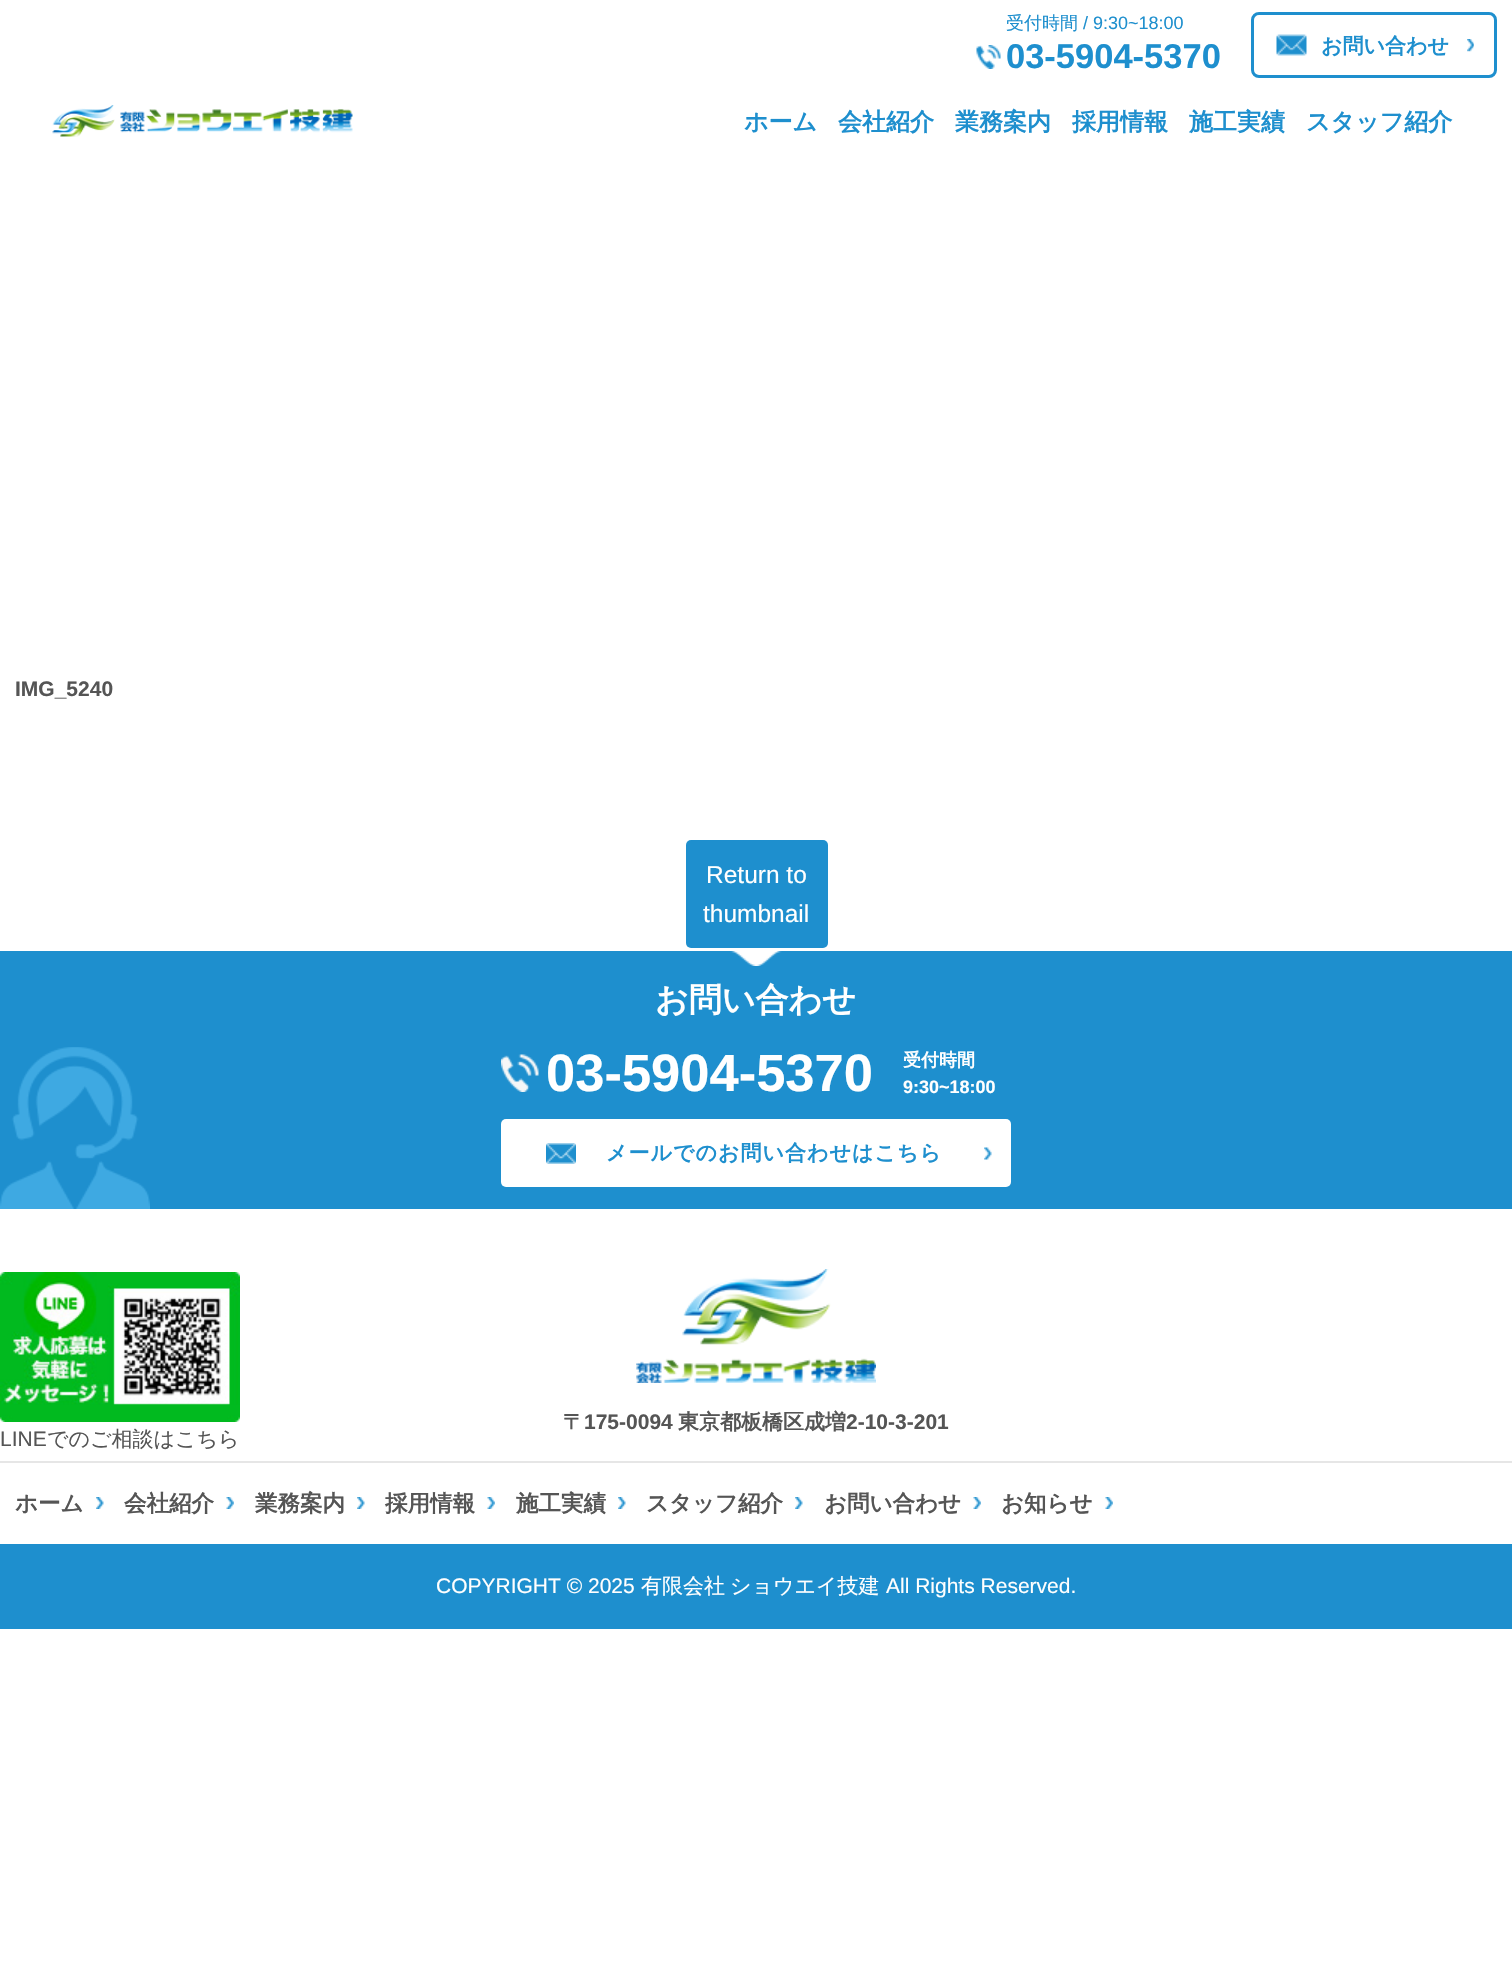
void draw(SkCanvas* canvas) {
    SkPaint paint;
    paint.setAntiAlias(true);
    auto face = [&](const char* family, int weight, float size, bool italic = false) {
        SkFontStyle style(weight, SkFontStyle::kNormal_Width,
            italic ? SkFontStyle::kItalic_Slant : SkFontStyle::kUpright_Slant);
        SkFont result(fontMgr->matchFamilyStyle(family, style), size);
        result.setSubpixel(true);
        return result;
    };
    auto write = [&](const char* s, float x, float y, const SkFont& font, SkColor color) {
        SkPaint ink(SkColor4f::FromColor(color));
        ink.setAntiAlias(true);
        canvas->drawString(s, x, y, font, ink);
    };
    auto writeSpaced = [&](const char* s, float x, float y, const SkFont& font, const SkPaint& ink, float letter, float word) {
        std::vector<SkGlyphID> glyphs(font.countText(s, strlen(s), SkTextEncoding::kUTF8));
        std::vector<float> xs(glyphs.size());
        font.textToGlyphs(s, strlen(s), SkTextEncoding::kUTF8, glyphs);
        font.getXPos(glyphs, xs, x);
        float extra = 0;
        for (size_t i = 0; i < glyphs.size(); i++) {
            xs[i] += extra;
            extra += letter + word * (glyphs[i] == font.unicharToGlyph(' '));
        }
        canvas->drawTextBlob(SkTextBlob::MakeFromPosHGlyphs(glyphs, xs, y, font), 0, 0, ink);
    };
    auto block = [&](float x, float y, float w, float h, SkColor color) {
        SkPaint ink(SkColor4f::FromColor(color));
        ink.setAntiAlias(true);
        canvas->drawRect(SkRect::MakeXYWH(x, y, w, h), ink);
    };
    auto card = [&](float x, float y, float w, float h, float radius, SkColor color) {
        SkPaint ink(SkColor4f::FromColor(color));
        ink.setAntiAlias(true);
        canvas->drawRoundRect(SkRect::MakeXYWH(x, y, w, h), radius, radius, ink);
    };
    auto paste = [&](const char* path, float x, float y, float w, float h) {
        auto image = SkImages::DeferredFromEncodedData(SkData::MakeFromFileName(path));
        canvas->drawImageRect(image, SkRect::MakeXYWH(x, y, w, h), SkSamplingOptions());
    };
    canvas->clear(SK_ColorWHITE);
    paste("pic1.png", 976, 45, 25, 24);
    auto kFont1 = face("WenQuanYi Zen Hei", 500, 18);
    write("受付時間", 1006, 29, kFont1, SkColorSetRGB(30, 143, 206));
    auto kFont2 = face("Liberation Sans", 400, 18);
    write("/ 9:30~18:00", 1083, 29, kFont2, SkColorSetRGB(30, 143, 206));
    auto kFont3 = face("Liberation Sans", 700, 34.5f);
    write("03-5904-5370", 1006, 68, kFont3, SkColorSetRGB(30, 143, 206));
    paste("pic2.png", 1276, 34, 31, 22);
    paint.setStyle(SkPaint::kStroke_Style);
    paint.setStrokeWidth(3);
    paint.setColor(SkColorSetRGB(30, 143, 206));
    canvas->drawRoundRect(SkRect::MakeXYWH(1252.5f, 13.5f, 243, 63), 6.5f, 6.5f, paint);
    auto kFont4 = face("WenQuanYi Zen Hei", 700, 21);
    write("お問い合わせ", 1321, 53, kFont4, SkColorSetRGB(30, 143, 206));
    paste("pic3.png", 1467, 39, 7, 13);
    paste("pic4.png", 52, 105, 301, 32);
    auto kFont5 = face("WenQuanYi Zen Hei", 700, 24);
    write("ホーム", 744, 130, kFont5, SkColorSetRGB(30, 143, 206));
    write("会社紹介", 838, 130, kFont5, SkColorSetRGB(30, 143, 206));
    write("業務案内", 955, 130, kFont5, SkColorSetRGB(30, 143, 206));
    write("採用情報", 1072, 130, kFont5, SkColorSetRGB(30, 143, 206));
    write("施工実績", 1189, 130, kFont5, SkColorSetRGB(30, 143, 206));
    write("スタッフ紹介", 1306, 130, kFont5, SkColorSetRGB(30, 143, 206));
    auto kFont6 = face("Liberation Sans", 700, 21);
    write("IMG_5240", 15, 696, kFont6, SkColorSetRGB(85, 85, 85));
    card(686, 840, 142, 108, 5, SkColorSetRGB(30, 143, 206));
    auto kFont7 = face("Liberation Sans", 400, 24.5f);
    write("Return to", 706, 883, kFont7, SK_ColorWHITE);
    write("thumbnail", 703, 922, kFont7, SK_ColorWHITE);
    block(0, 951, 1512, 258, SkColorSetRGB(30, 143, 206));
    paste("pic5.png", 0, 1047, 150, 162);
    paste("pic6.png", 730, 951, 52, 15);
    auto kFont8 = face("WenQuanYi Zen Hei", 700, 33);
    write("お問い合わせ", 655, 1011, kFont8, SK_ColorWHITE);
    paste("pic7.png", 501, 1054, 38, 38);
    auto kFont9 = face("Liberation Sans", 700, 52.5f);
    write("03-5904-5370", 546, 1091, kFont9, SK_ColorWHITE);
    auto kFont10 = face("WenQuanYi Zen Hei", 700, 18);
    write("受付時間", 903, 1066, kFont10, SK_ColorWHITE);
    auto kFont11 = face("Liberation Sans", 700, 18);
    write("9:30~18:00", 903, 1093, kFont11, SK_ColorWHITE);
    card(501, 1119, 510, 68, 5, SK_ColorWHITE);
    paste("pic8.png", 546, 1143, 30, 21);
    paint.setStyle(SkPaint::kFill_Style);
    writeSpaced("メールでのお問い合わせはこちら", 606, 1160, kFont4, paint, 1, 0);
    paste("pic9.png", 984, 1147, 8, 13);
    paste("pic10.png", 636, 1269, 240, 114);
    write("〒", 563, 1429, kFont4, SkColorSetRGB(85, 85, 85));
    write("175-0094", 584, 1429, kFont6, SkColorSetRGB(85, 85, 85));
    write("東京都板橋区成増", 678, 1429, kFont4, SkColorSetRGB(85, 85, 85));
    write("2-10-3-201", 846, 1429, kFont6, SkColorSetRGB(85, 85, 85));
    paste("pic11.png", 0, 1272, 240, 150);
    auto kFont12 = face("Liberation Sans", 400, 21);
    write("LINE", 0, 1446, kFont12, SkColorSetRGB(85, 85, 85));
    auto kFont13 = face("WenQuanYi Zen Hei", 500, 21);
    write("でのご相談はこちら", 47, 1446, kFont13, SkColorSetRGB(85, 85, 85));
    block(0, 1461, 1512, 2, SkColorSetRGB(230, 230, 230));
    auto kFont14 = face("WenQuanYi Zen Hei", 700, 22.5f);
    write("ホーム", 15, 1511, kFont14, SkColorSetRGB(85, 85, 85));
    paste("pic12.png", 96, 1497, 8, 12);
    write("会社紹介", 124, 1511, kFont14, SkColorSetRGB(85, 85, 85));
    paste("pic13.png", 226, 1497, 8, 12);
    write("業務案内", 255, 1511, kFont14, SkColorSetRGB(85, 85, 85));
    paste("pic14.png", 357, 1497, 8, 12);
    write("採用情報", 385, 1511, kFont14, SkColorSetRGB(85, 85, 85));
    paste("pic13.png", 487, 1497, 8, 12);
    write("施工実績", 516, 1511, kFont14, SkColorSetRGB(85, 85, 85));
    paste("pic12.png", 618, 1497, 8, 12);
    write("スタッフ紹介", 646, 1511, kFont14, SkColorSetRGB(85, 85, 85));
    paste("pic12.png", 795, 1497, 8, 12);
    write("お問い合わせ", 824, 1511, kFont14, SkColorSetRGB(85, 85, 85));
    paste("pic13.png", 973, 1497, 8, 12);
    write("お知らせ", 1001, 1511, kFont14, SkColorSetRGB(85, 85, 85));
    paste("pic13.png", 1105, 1497, 8, 12);
    block(0, 1544, 1512, 85, SkColorSetRGB(30, 143, 206));
    write("COPYRIGHT © 2025", 436, 1593, kFont12, SK_ColorWHITE);
    write("有限会社", 641, 1593, kFont13, SK_ColorWHITE);
    write("ショウエイ技建", 730, 1593, kFont13, SK_ColorWHITE);
    write("All Rights Reserved.", 886, 1593, kFont12, SK_ColorWHITE);
}
